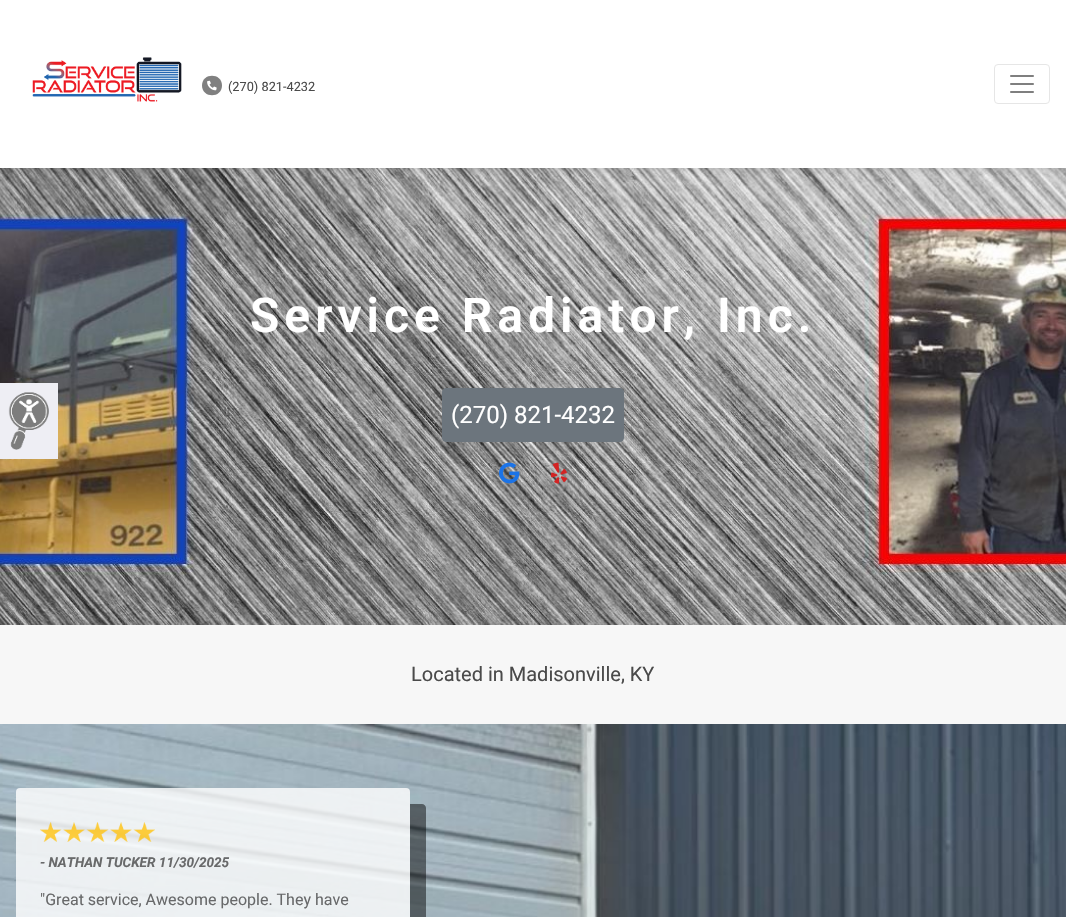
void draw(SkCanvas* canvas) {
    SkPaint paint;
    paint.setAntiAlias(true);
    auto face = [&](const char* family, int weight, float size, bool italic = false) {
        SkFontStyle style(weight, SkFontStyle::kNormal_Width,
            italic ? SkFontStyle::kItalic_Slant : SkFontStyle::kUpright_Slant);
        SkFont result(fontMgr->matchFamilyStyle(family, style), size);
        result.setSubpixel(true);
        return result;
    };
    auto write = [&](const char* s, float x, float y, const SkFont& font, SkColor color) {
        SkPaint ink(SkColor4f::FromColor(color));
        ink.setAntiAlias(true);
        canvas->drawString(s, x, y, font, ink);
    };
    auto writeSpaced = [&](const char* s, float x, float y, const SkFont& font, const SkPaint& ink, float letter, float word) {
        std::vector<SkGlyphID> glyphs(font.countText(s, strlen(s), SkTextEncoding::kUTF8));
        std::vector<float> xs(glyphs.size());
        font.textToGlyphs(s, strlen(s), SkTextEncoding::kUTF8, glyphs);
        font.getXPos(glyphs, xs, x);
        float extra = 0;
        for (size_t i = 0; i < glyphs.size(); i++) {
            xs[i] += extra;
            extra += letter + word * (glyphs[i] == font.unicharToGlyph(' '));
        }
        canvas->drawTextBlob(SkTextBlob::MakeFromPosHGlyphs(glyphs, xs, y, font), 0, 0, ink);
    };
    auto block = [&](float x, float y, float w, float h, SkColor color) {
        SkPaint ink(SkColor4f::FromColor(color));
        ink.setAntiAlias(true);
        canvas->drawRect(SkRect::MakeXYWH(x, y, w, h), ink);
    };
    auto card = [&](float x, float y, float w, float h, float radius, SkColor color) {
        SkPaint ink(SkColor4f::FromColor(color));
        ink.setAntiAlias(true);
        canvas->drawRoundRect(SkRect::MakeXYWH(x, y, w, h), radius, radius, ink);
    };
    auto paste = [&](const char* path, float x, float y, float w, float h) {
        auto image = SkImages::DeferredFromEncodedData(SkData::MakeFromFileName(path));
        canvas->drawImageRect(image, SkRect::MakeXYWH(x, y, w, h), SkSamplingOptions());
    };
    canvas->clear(SkColorSetRGB(247, 247, 247));
    paste("pic5.png", 0, 168, 1066, 457);
    paint.setColor(SkColorSetARGB(26, 0, 0, 0));
    paint.setMaskFilter(SkMaskFilter::MakeBlur(kNormal_SkBlurStyle, 4));
    canvas->drawRect(SkRect::MakeXYWH(0, 2, 1066, 168), paint);
    paint.setMaskFilter(nullptr);
    block(0, 0, 1066, 168, SK_ColorWHITE);
    paste("pic1.png", 32, 57, 150, 45);
    paint.setColor(SkColorSetRGB(128, 128, 128));
    canvas->drawPath(SkPathBuilder().moveTo(222, 85.5f).cubicTo(222, 98.5f, 202, 98.5f, 202, 85.5f).cubicTo(202, 72.5f, 222, 72.5f, 222, 85.5f).close().detach(), paint);
    paste("pic2.png", 207, 80, 10, 11);
    auto kFont1 = face("Roboto", 400, 12.75f);
    write("(270) 821-4232", 228, 91, kFont1, SkColorSetRGB(74, 74, 74));
    paint.setStyle(SkPaint::kStroke_Style);
    paint.setStrokeWidth(1);
    paint.setColor(SkColorSetRGB(230, 230, 230));
    canvas->drawRoundRect(SkRect::MakeXYWH(994.5f, 64.5f, 55, 39), 3.5f, 3.5f, paint);
    paste("pic3.png", 1010, 75, 24, 18);
    block(0, 383, 58, 76, SkColorSetRGB(238, 238, 244));
    paste("pic4.png", 8, 392, 41, 58);
    auto kFont2 = face("Roboto", 600, 48);
    paint.setStyle(SkPaint::kFill_Style);
    paint.setColor(SK_ColorWHITE);
    writeSpaced("Service Radiator, Inc.", 250, 332, kFont2, paint, 5, 0);
    paint.setColor(SkColorSetRGB(108, 117, 125));
    canvas->drawRoundRect(SkRect::MakeXYWH(442.5f, 388.5f, 181, 53), 3.5f, 3.5f, paint);
    paint.setStyle(SkPaint::kStroke_Style);
    canvas->drawRoundRect(SkRect::MakeXYWH(442.5f, 388.5f, 181, 53), 3.5f, 3.5f, paint);
    auto kFont3 = face("Roboto", 400, 24);
    write("(270) 821-4232", 451, 423, kFont3, SK_ColorWHITE);
    paste("pic6.png", 499, 462, 21, 22);
    paste("pic7.png", 551, 462, 16, 22);
    auto kFont4 = face("Roboto", 400, 20);
    write("Located in Madisonville, KY", 411, 681, kFont4, SkColorSetRGB(74, 74, 74));
    paste("pic8.png", 0, 724, 1066, 193);
    paint.setStyle(SkPaint::kFill_Style);
    paint.setColor(SkColorSetARGB(122, 0, 0, 0));
    canvas->drawPath(SkPathBuilder().moveTo(32, 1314).lineTo(32, 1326).cubicTo(32, 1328, 34, 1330, 36, 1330).lineTo(422, 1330).cubicTo(424, 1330, 426, 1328, 426, 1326).lineTo(426, 808).cubicTo(426, 806, 424, 804, 422, 804).lineTo(410, 804).lineTo(410, 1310).cubicTo(410, 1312, 408, 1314, 406, 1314).close().detach(), paint);
    card(16, 788, 394, 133, 4, SkColorSetARGB(204, 255, 255, 255));
    paste("pic9.png", 40, 822, 115, 20);
    auto kFont5 = face("Roboto", 700, 13.6f, true);
    write("- NATHAN TUCKER 11/30/2025", 40, 867, kFont5, SkColorSetRGB(104, 105, 106));
    auto kFont6 = face("Roboto", 400, 16);
    write("\"Great service, Awesome people. They have", 40, 905, kFont6, SkColorSetRGB(104, 105, 106));
}
